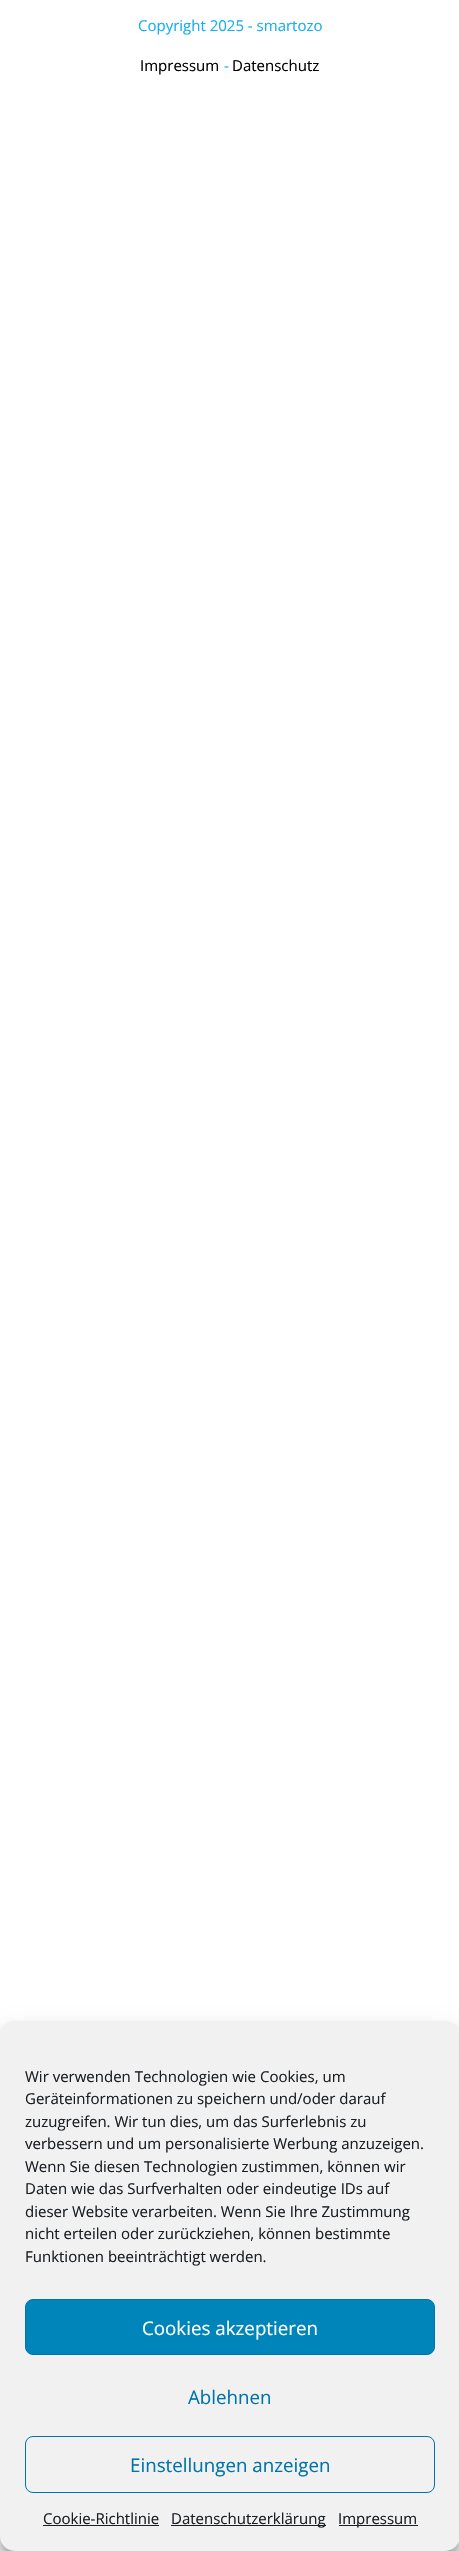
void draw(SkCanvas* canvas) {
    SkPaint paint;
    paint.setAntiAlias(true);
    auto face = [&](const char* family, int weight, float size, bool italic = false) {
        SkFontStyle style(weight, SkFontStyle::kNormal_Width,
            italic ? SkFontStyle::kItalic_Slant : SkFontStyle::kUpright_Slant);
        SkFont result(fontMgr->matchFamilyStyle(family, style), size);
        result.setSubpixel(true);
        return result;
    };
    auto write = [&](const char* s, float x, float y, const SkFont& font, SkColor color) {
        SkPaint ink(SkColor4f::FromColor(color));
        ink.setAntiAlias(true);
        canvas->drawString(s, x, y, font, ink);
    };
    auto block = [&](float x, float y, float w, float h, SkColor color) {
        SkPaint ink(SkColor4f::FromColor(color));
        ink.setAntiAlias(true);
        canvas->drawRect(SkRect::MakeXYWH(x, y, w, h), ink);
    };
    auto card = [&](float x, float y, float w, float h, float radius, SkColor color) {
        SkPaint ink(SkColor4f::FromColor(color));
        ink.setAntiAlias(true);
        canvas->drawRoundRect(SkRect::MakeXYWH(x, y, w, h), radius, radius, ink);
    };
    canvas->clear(SK_ColorWHITE);
    auto kFont1 = face("Open Sans", 400, 15);
    write("Copyright 2025 - smartozo", 138, 31, kFont1, SkColorSetRGB(19, 175, 240));
    write("Impressum", 140, 71, kFont1, SK_ColorBLACK);
    write("-", 224, 71, kFont1, SkColorSetRGB(19, 175, 240));
    write("Datenschutz", 232, 71, kFont1, SK_ColorBLACK);
    paint.setColor(SkColorSetARGB(59, 0, 0, 0));
    paint.setMaskFilter(SkMaskFilter::MakeBlur(kNormal_SkBlurStyle, 4));
    canvas->drawRoundRect(SkRect::MakeXYWH(0, 2029, 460, 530), 15, 15, paint);
    paint.setMaskFilter(nullptr);
    paint.setColor(SkColorSetARGB(48, 0, 0, 0));
    paint.setMaskFilter(SkMaskFilter::MakeBlur(kNormal_SkBlurStyle, 12.5f));
    canvas->drawRoundRect(SkRect::MakeXYWH(0, 2034, 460, 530), 15, 15, paint);
    paint.setMaskFilter(nullptr);
    card(0, 2021, 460, 530, 15, SkColorSetRGB(241, 241, 241));
    write("Wir verwenden Technologien wie Cookies, um", 25, 2082, kFont1, SkColorSetRGB(25, 30, 35));
    write("Geräteinformationen zu speichern und/oder darauf", 25, 2104, kFont1, SkColorSetRGB(25, 30, 35));
    write("zuzugreifen. Wir tun dies, um das Surferlebnis zu", 25, 2127, kFont1, SkColorSetRGB(25, 30, 35));
    write("verbessern und um personalisierte Werbung anzuzeigen.", 25, 2149, kFont1, SkColorSetRGB(25, 30, 35));
    write("Wenn Sie diesen Technologien zustimmen, können wir", 25, 2172, kFont1, SkColorSetRGB(25, 30, 35));
    write("Daten wie das Surfverhalten oder eindeutige IDs auf", 25, 2194, kFont1, SkColorSetRGB(25, 30, 35));
    write("dieser Website verarbeiten. Wenn Sie Ihre Zustimmung", 25, 2217, kFont1, SkColorSetRGB(25, 30, 35));
    write("nicht erteilen oder zurückziehen, können bestimmte", 25, 2239, kFont1, SkColorSetRGB(25, 30, 35));
    write("Funktionen beeinträchtigt werden.", 25, 2262, kFont1, SkColorSetRGB(25, 30, 35));
    paint.setColor(SkColorSetRGB(0, 133, 186));
    canvas->drawRoundRect(SkRect::MakeXYWH(25.5f, 2299.5f, 409, 55), 7.5f, 7.5f, paint);
    paint.setStyle(SkPaint::kStroke_Style);
    paint.setStrokeWidth(1);
    paint.setColor(SkColorSetRGB(0, 115, 170));
    canvas->drawRoundRect(SkRect::MakeXYWH(25.5f, 2299.5f, 409, 55), 7.5f, 7.5f, paint);
    auto kFont2 = face("Open Sans", 400, 18.75f);
    write("Cookies akzeptieren", 142, 2335, kFont2, SK_ColorWHITE);
    write("Ablehnen", 188, 2404, kFont2, SkColorSetRGB(0, 115, 170));
    canvas->drawRoundRect(SkRect::MakeXYWH(25.5f, 2436.5f, 409, 56), 7.5f, 7.5f, paint);
    write("Einstellungen anzeigen", 130, 2472, kFont2, SkColorSetRGB(0, 115, 170));
    write("Cookie-Richtlinie", 43, 2524, kFont1, SkColorSetRGB(25, 30, 35));
    block(43, 2525, 116, 1, SkColorSetRGB(25, 30, 35));
    block(171, 2525, 155, 1, SkColorSetRGB(25, 30, 35));
    write("Datenschutzerklärung", 171, 2524, kFont1, SkColorSetRGB(25, 30, 35));
    block(339, 2525, 79, 1, SkColorSetRGB(25, 30, 35));
    write("Impressum", 338, 2524, kFont1, SkColorSetRGB(25, 30, 35));
}
